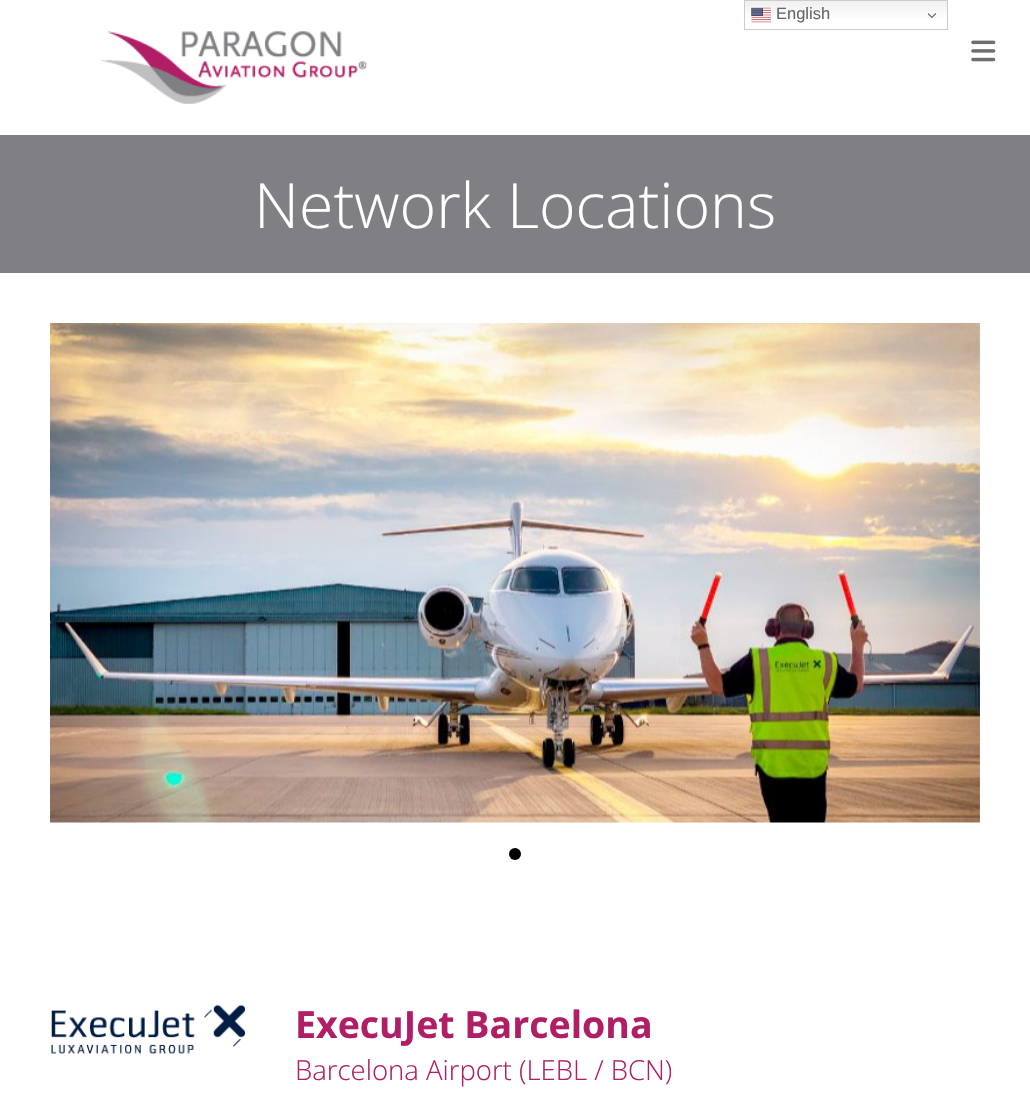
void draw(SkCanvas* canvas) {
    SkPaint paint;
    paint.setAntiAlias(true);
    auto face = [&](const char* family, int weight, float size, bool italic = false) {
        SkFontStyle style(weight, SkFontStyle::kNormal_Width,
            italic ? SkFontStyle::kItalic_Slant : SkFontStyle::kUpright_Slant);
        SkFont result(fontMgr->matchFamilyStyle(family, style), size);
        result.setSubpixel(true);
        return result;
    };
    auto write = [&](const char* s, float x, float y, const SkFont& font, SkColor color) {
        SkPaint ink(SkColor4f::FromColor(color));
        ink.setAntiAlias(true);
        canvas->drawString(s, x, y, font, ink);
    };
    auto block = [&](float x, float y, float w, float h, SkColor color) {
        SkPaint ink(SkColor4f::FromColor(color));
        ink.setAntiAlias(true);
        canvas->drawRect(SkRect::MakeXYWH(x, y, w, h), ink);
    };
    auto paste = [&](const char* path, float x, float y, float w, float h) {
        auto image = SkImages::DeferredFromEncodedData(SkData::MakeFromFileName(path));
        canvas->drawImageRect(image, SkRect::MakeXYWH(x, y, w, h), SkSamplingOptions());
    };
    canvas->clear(SK_ColorWHITE);
    {
        const SkColor colors[] = {SkColorSetRGB(239, 239, 239), SK_ColorWHITE};
        const float stops[] = {0, 0.7f};
        const SkPoint ends[] = {{846, 0}, {846, 30}};
        paint.setShader(SkGradientShader::MakeLinear(ends, colors, stops, 2, SkTileMode::kClamp));
        paint.setAlpha(255);
    }
    canvas->drawRect(SkRect::MakeXYWH(745, 1, 202, 17), paint);
    paint.setStyle(SkPaint::kStroke_Style);
    paint.setStrokeWidth(1);
    paint.setShader(nullptr);
    paint.setColor(SkColorSetRGB(204, 204, 204));
    canvas->drawRect(SkRect::MakeXYWH(744.5f, 0.5f, 203, 29), paint);
    paste("pic1.png", 751, 7, 20, 16);
    auto kFont1 = face("Liberation Sans", 400, 16.5f);
    write("English", 776, 19, kFont1, SkColorSetRGB(102, 102, 102));
    paste("pic2.png", 928, 13, 8, 6);
    paste("pic3.png", 101, 31, 266, 73);
    paste("pic4.png", 971, 40, 25, 22);
    block(0, 135, 1030, 138, SkColorSetRGB(128, 128, 132));
    auto kFont2 = face("Open Sans", 300, 62.5f);
    write("Network Locations", 254, 228, kFont2, SK_ColorWHITE);
    paste("pic5.png", 50, 323, 930, 500);
    paint.setStyle(SkPaint::kFill_Style);
    paint.setColor(SK_ColorBLACK);
    canvas->drawCircle(515, 854, 6, paint);
    paste("pic6.png", 51, 1004, 194, 50);
    auto kFont3 = face("Open Sans", 700, 37.5f);
    write("ExecuJet Barcelona", 295, 1038, kFont3, SkColorSetRGB(176, 30, 101));
    auto kFont4 = face("Open Sans", 300, 27.5f);
    write("Barcelona Airport (LEBL / BCN)", 295, 1080, kFont4, SkColorSetRGB(176, 30, 101));
}
